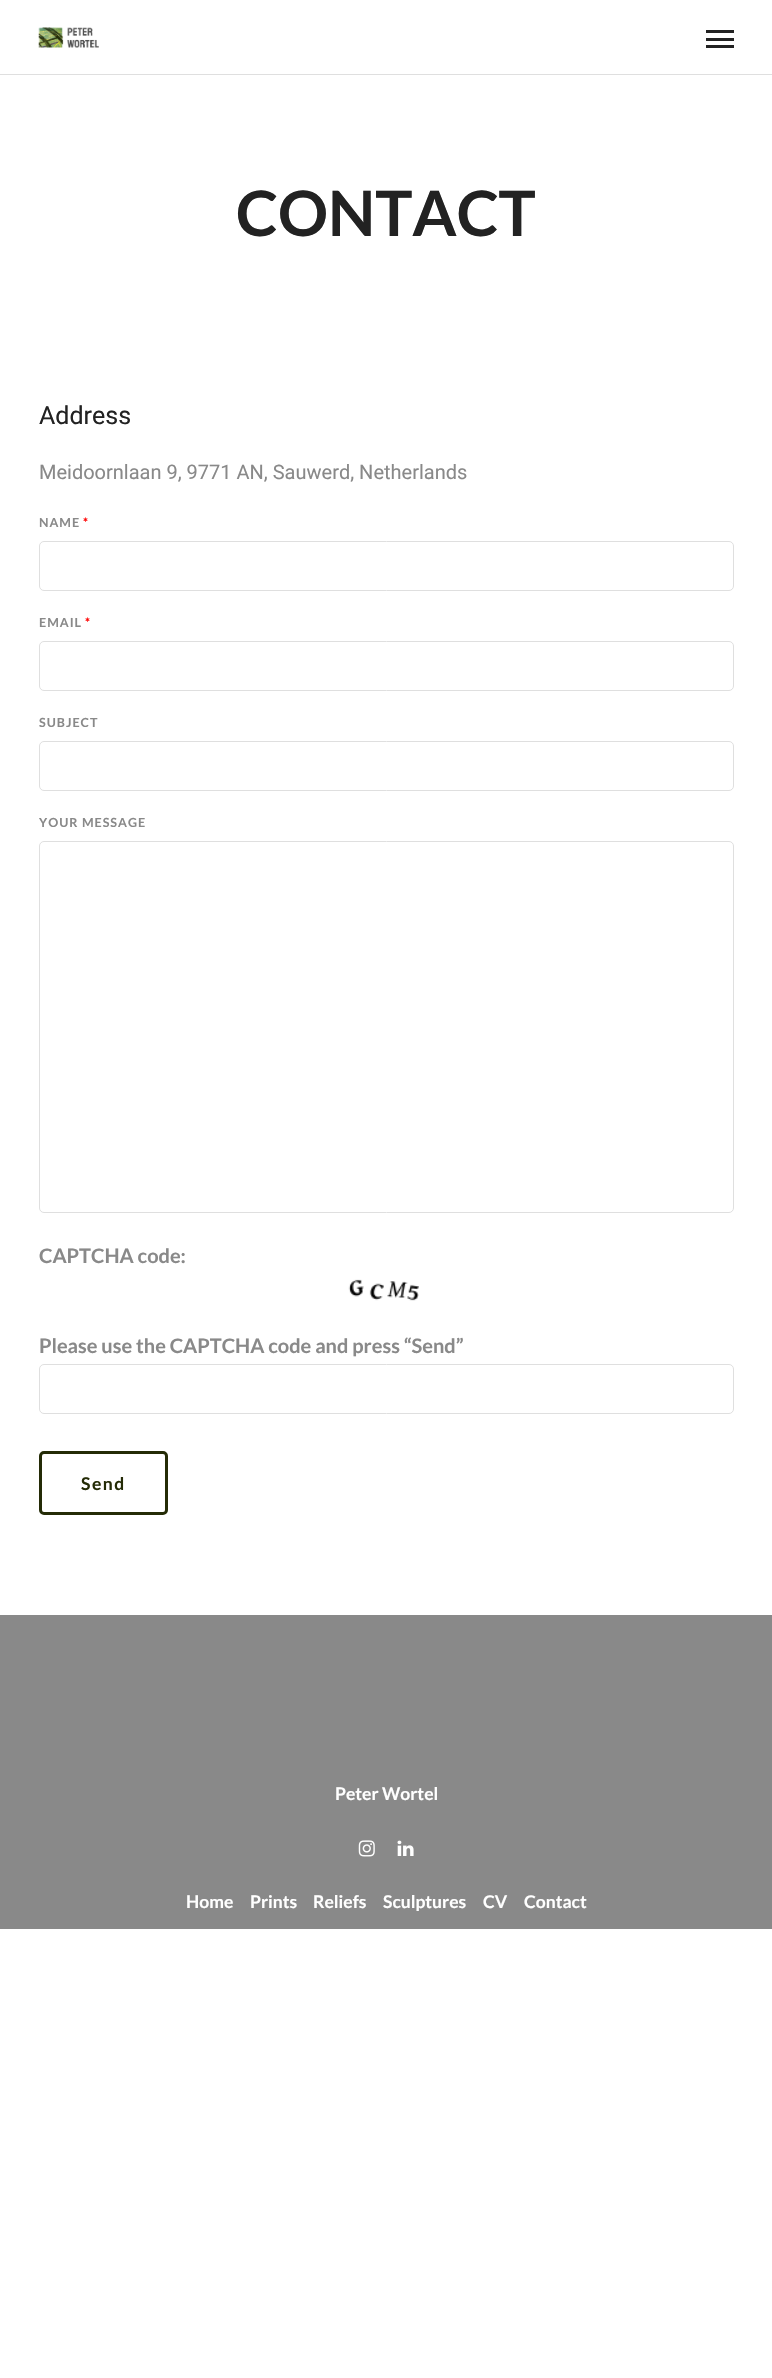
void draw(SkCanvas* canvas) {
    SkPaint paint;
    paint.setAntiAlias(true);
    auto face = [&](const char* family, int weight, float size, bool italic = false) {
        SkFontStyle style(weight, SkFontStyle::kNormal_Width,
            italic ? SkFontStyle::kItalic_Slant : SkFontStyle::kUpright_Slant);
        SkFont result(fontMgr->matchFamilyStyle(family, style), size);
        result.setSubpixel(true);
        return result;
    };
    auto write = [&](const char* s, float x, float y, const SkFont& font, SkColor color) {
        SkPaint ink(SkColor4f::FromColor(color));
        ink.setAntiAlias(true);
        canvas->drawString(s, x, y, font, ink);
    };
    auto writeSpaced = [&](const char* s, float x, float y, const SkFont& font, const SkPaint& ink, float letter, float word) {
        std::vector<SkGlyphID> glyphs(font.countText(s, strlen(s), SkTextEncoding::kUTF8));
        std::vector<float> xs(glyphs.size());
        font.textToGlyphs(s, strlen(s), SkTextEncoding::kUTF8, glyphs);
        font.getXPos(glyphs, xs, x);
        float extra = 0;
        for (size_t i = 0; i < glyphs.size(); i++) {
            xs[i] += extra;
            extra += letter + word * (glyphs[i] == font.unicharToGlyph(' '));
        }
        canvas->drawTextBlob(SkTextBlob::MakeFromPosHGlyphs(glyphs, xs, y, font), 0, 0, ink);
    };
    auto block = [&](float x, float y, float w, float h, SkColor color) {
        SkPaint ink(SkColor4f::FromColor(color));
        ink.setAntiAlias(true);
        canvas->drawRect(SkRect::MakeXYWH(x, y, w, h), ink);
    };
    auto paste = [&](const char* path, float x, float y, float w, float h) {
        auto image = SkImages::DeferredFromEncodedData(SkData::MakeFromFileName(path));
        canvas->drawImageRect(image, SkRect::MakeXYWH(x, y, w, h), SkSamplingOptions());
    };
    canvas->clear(SK_ColorWHITE);
    block(0, 74, 772, 1, SkColorSetRGB(223, 223, 223));
    paste("pic1.png", 38, 27, 61, 21);
    block(706, 38, 28, 3, SkColorSetRGB(34, 34, 34));
    block(706, 30, 28, 3, SkColorSetRGB(34, 34, 34));
    block(706, 45, 28, 3, SkColorSetRGB(34, 34, 34));
    auto kFont1 = face("Lato", 700, 62.5f);
    write("CONTACT", 236, 236, kFont1, SkColorSetRGB(34, 34, 34));
    auto kFont2 = face("Roboto", 400, 25);
    write("Address", 39, 424, kFont2, SkColorSetRGB(34, 34, 34));
    auto kFont3 = face("Roboto", 400, 20);
    write("Meidoornlaan 9, 9771 AN, Sauwerd, Netherlands", 39, 479, kFont3, SkColorSetRGB(137, 137, 137));
    auto kFont4 = face("Lato", 700, 12.5f);
    paint.setColor(SkColorSetRGB(137, 137, 137));
    writeSpaced("NAME", 39, 527, kFont4, paint, 1, 0);
    paint.setColor(SkColorSetRGB(255, 0, 0));
    writeSpaced("*", 83, 527, kFont4, paint, 1, 0);
    paint.setStyle(SkPaint::kStroke_Style);
    paint.setStrokeWidth(1);
    paint.setColor(SkColorSetRGB(223, 223, 223));
    canvas->drawRoundRect(SkRect::MakeXYWH(39.5f, 541.5f, 694, 49), 4.5f, 4.5f, paint);
    paint.setStyle(SkPaint::kFill_Style);
    paint.setColor(SkColorSetRGB(137, 137, 137));
    writeSpaced("EMAIL", 39, 627, kFont4, paint, 1, 0);
    paint.setColor(SkColorSetRGB(255, 0, 0));
    writeSpaced("*", 85, 627, kFont4, paint, 1, 0);
    paint.setStyle(SkPaint::kStroke_Style);
    paint.setColor(SkColorSetRGB(223, 223, 223));
    canvas->drawRoundRect(SkRect::MakeXYWH(39.5f, 641.5f, 694, 49), 4.5f, 4.5f, paint);
    paint.setStyle(SkPaint::kFill_Style);
    paint.setColor(SkColorSetRGB(137, 137, 137));
    writeSpaced("SUBJECT", 39, 727, kFont4, paint, 1, 0);
    paint.setStyle(SkPaint::kStroke_Style);
    paint.setColor(SkColorSetRGB(223, 223, 223));
    canvas->drawRoundRect(SkRect::MakeXYWH(39.5f, 741.5f, 694, 49), 4.5f, 4.5f, paint);
    paint.setStyle(SkPaint::kFill_Style);
    paint.setColor(SkColorSetRGB(137, 137, 137));
    writeSpaced("YOUR MESSAGE", 39, 827, kFont4, paint, 1, 0);
    paint.setStyle(SkPaint::kStroke_Style);
    paint.setColor(SkColorSetRGB(223, 223, 223));
    canvas->drawRoundRect(SkRect::MakeXYWH(39.5f, 841.5f, 694, 371), 4.5f, 4.5f, paint);
    auto kFont5 = face("Lato", 700, 20);
    write("CAPTCHA code:", 39, 1263, kFont5, SkColorSetRGB(137, 137, 137));
    paste("pic2.png", 348, 1279, 71, 22);
    write("Please use the CAPTCHA code and press “Send”", 39, 1353, kFont5, SkColorSetRGB(137, 137, 137));
    canvas->drawRoundRect(SkRect::MakeXYWH(39.5f, 1364.5f, 694, 49), 4.5f, 4.5f, paint);
    paint.setStrokeWidth(3);
    paint.setColor(SkColorSetRGB(36, 43, 6));
    canvas->drawRoundRect(SkRect::MakeXYWH(40.5f, 1452.5f, 126, 61), 3.5f, 3.5f, paint);
    auto kFont6 = face("Lato", 700, 17.5f);
    paint.setStyle(SkPaint::kFill_Style);
    writeSpaced("Send", 81, 1490, kFont6, paint, 1.5f, 0);
    block(0, 1615, 772, 314, SkColorSetRGB(137, 137, 137));
    write("Peter Wortel", 335, 1800, kFont6, SK_ColorWHITE);
    paste("pic3.png", 358, 1840, 17, 17);
    paste("pic4.png", 397, 1840, 17, 16);
    write("Home", 186, 1908, kFont6, SK_ColorWHITE);
    write("Prints", 250, 1908, kFont6, SK_ColorWHITE);
    write("Reliefs", 313, 1908, kFont6, SK_ColorWHITE);
    write("Sculptures", 383, 1908, kFont6, SK_ColorWHITE);
    write("CV", 483, 1908, kFont6, SK_ColorWHITE);
    write("Contact", 524, 1908, kFont6, SK_ColorWHITE);
}
